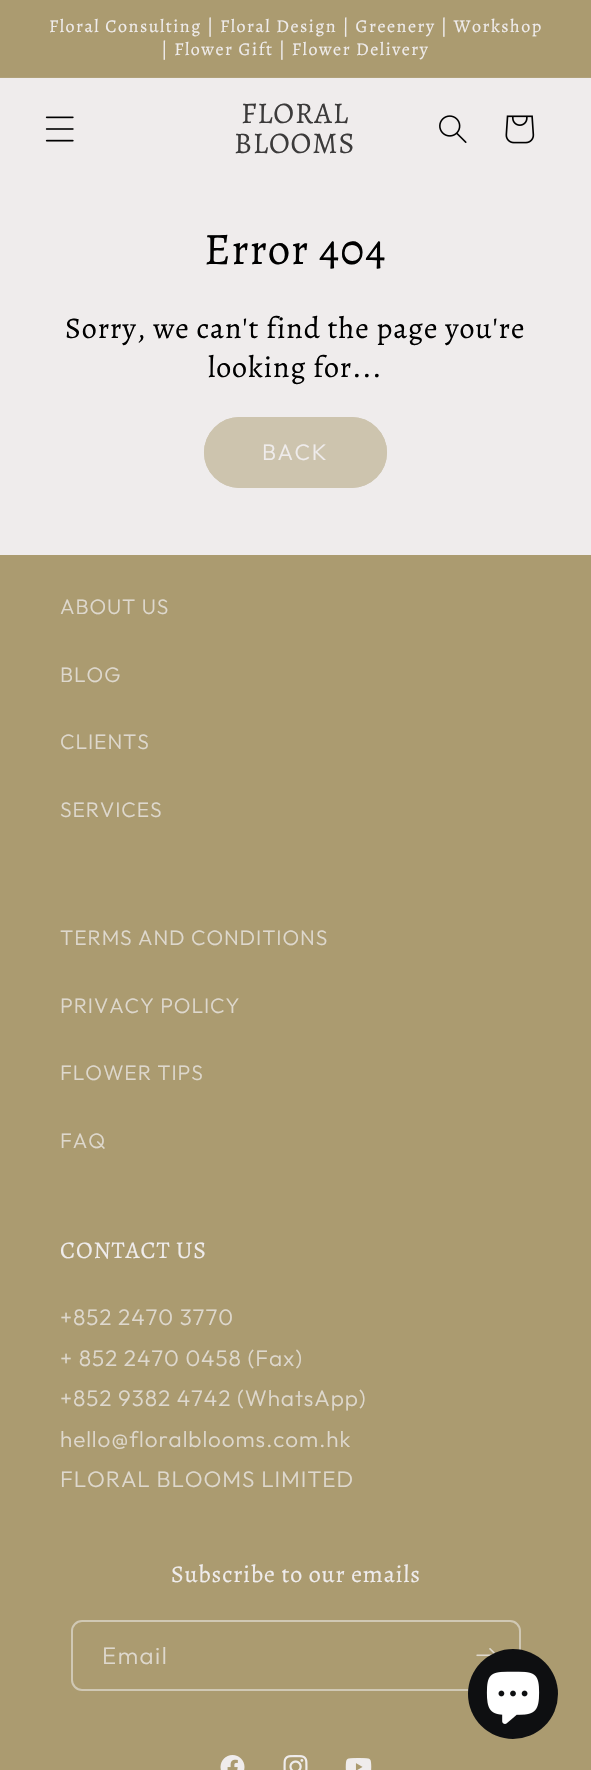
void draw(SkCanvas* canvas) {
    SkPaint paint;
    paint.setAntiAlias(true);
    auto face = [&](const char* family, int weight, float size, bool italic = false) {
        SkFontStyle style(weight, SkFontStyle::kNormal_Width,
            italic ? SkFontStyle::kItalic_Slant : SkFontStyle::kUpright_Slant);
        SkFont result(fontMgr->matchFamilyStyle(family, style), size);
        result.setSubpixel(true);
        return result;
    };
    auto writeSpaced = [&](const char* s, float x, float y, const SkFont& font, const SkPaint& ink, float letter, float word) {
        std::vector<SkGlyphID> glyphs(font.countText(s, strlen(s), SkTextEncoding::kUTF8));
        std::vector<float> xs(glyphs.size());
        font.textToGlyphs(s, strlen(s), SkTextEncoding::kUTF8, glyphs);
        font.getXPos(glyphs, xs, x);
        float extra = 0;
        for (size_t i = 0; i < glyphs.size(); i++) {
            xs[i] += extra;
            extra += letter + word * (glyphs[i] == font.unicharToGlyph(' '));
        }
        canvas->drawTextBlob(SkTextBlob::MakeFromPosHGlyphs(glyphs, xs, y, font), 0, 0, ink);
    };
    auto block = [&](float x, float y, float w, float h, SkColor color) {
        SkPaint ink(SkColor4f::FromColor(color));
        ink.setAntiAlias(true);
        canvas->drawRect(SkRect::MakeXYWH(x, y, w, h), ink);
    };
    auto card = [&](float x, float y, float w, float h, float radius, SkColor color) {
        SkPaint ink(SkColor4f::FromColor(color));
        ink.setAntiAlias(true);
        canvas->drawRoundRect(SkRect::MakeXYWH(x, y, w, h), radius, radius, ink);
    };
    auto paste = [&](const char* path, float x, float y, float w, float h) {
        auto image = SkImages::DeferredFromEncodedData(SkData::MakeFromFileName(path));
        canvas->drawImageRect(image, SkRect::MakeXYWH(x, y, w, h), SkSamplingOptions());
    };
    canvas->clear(SkColorSetRGB(239, 236, 236));
    block(0, 0, 591, 77, SkColorSetRGB(171, 155, 112));
    block(0, 77, 591, 1, SkColorSetRGB(176, 161, 122));
    auto kFont1 = face("Alegreya", 400, 18);
    paint.setColor(SkColorSetRGB(239, 236, 236));
    writeSpaced("Floral Consulting | Floral Design | Greenery | Workshop", 49, 32, kFont1, paint, 1.5f, 0);
    writeSpaced("| Flower Gift | Flower Delivery", 161, 55, kFont1, paint, 1.5f, 0);
    paste("pic1.png", 45, 116, 29, 26);
    auto kFont2 = face("Alegreya", 400, 30);
    paint.setColor(SkColorSetRGB(60, 59, 59));
    writeSpaced("FLORAL", 241, 123, kFont2, paint, 0.9f, 0);
    writeSpaced("BLOOMS", 234, 153, kFont2, paint, 0.9f, 0);
    paste("pic2.png", 439, 115, 28, 28);
    paste("pic3.png", 505, 115, 30, 29);
    auto kFont3 = face("Alegreya", 400, 45);
    paint.setColor(SK_ColorBLACK);
    writeSpaced("Error 404", 204, 264, kFont3, paint, 0.9f, 0);
    writeSpaced("Sorry, we can't find the page you're", 65, 338, kFont2, paint, 0.9f, 0);
    writeSpaced("looking for...", 208, 377, kFont2, paint, 0.9f, 0);
    card(204, 417, 183, 71, 35.5f, SkColorSetRGB(205, 196, 174));
    paint.setStyle(SkPaint::kStroke_Style);
    paint.setStrokeWidth(2);
    paint.setColor(SkColorSetRGB(205, 196, 174));
    canvas->drawRoundRect(SkRect::MakeXYWH(205, 418, 181, 69), 34.5f, 34.5f, paint);
    auto kFont4 = face("Outfit", 300, 22.5f);
    paint.setStyle(SkPaint::kFill_Style);
    paint.setColor(SkColorSetRGB(239, 236, 236));
    writeSpaced("BACK", 262, 460, kFont4, paint, 1.5f, 0);
    block(0, 555, 591, 1215, SkColorSetRGB(171, 155, 112));
    auto kFont5 = face("Outfit", 300, 21);
    paint.setColor(SkColorSetRGB(222, 216, 205));
    writeSpaced("ABOUT US", 60, 614, kFont5, paint, 0.9f, 0);
    writeSpaced("BLOG", 60, 682, kFont5, paint, 0.9f, 0);
    writeSpaced("CLIENTS", 60, 749, kFont5, paint, 0.9f, 0);
    writeSpaced("SERVICES", 60, 817, kFont5, paint, 0.9f, 0);
    writeSpaced("TERMS AND CONDITIONS", 60, 945, kFont5, paint, 0.9f, 0);
    writeSpaced("PRIVACY POLICY", 60, 1013, kFont5, paint, 0.9f, 0);
    writeSpaced("FLOWER TIPS", 60, 1080, kFont5, paint, 0.9f, 0);
    writeSpaced("FAQ", 60, 1148, kFont5, paint, 0.9f, 0);
    auto kFont6 = face("Alegreya", 400, 24);
    paint.setColor(SkColorSetRGB(239, 236, 236));
    writeSpaced("CONTACT US", 60, 1258, kFont6, paint, 0.9f, 0);
    paint.setColor(SkColorSetRGB(222, 216, 205));
    writeSpaced("+852 2470 3770", 60, 1325, kFont4, paint, 0.9f, 0);
    writeSpaced("+ 852 2470 0458 (Fax)", 60, 1366, kFont4, paint, 0.9f, 0);
    writeSpaced("+852 9382 4742 (WhatsApp)", 60, 1406, kFont4, paint, 0.9f, 0);
    writeSpaced("hello@floralblooms.com.hk", 60, 1447, kFont4, paint, 0.9f, 0);
    writeSpaced("FLORAL BLOOMS LIMITED", 60, 1487, kFont4, paint, 0.9f, 0);
    paint.setColor(SkColorSetRGB(239, 236, 236));
    writeSpaced("Subscribe to our emails", 171, 1582, kFont6, paint, 0.9f, 0);
    paint.setStyle(SkPaint::kStroke_Style);
    paint.setColor(SkColorSetRGB(208, 200, 180));
    canvas->drawRoundRect(SkRect::MakeXYWH(72, 1621, 448, 69), 10, 10, paint);
    auto kFont7 = face("Outfit", 300, 24);
    paint.setStyle(SkPaint::kFill_Style);
    paint.setColor(SkColorSetRGB(222, 216, 205));
    writeSpaced("Email", 102, 1664, kFont7, paint, 1.5f, 0);
    paste("pic4.png", 476, 1648, 20, 9);
    paste("pic5.png", 220, 1755, 25, 15);
    paste("pic6.png", 283, 1755, 25, 15);
    paste("pic7.png", 345, 1758, 27, 12);
    paint.setColor(SkColorSetRGB(14, 15, 17));
    canvas->drawCircle(513, 1694, 45, paint);
    paste("pic8.png", 486, 1671, 54, 53);
}
